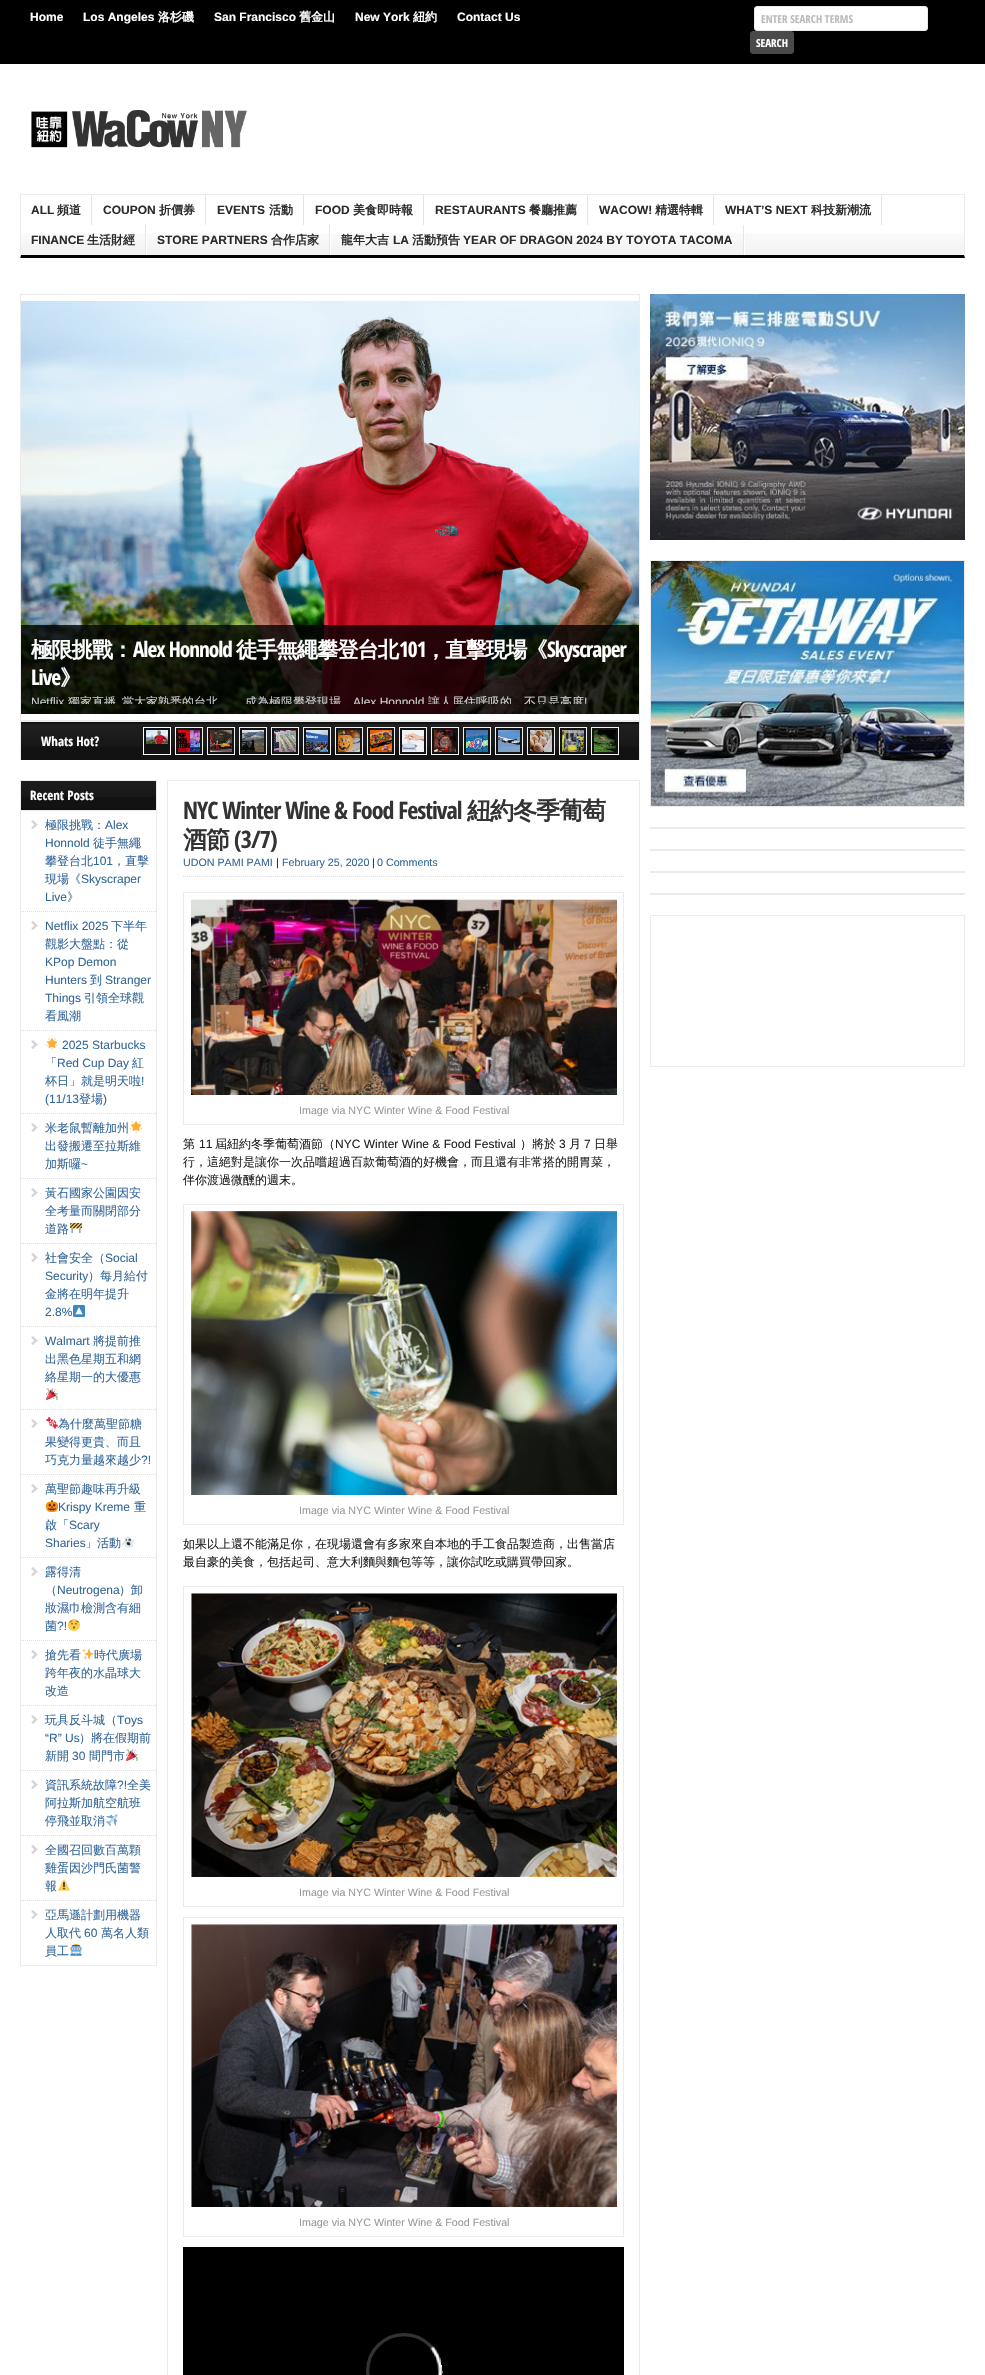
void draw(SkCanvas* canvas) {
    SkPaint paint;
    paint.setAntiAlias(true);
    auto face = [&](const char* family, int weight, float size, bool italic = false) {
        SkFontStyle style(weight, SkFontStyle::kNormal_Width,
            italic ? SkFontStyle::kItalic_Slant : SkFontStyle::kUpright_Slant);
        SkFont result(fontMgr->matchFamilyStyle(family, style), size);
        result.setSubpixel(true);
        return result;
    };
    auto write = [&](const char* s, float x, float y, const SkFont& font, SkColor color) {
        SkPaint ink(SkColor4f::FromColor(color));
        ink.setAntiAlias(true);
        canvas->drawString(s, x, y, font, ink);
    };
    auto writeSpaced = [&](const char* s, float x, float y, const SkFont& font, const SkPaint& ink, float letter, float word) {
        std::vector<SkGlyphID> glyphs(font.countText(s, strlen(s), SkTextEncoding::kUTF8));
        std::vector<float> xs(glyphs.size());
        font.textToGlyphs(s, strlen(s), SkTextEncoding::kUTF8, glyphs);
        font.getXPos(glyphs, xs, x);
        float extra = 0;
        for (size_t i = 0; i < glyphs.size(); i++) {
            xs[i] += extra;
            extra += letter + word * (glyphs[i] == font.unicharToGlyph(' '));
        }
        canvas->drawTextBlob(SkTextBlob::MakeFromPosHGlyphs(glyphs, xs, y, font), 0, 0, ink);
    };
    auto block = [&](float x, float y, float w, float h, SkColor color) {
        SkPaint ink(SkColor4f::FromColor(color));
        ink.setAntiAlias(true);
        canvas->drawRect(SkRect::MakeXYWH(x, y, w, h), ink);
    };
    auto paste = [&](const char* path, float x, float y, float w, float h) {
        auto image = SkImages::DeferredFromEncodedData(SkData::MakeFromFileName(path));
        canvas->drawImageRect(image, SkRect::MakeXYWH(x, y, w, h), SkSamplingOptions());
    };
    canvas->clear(SK_ColorBLACK);
    auto kFont1 = face("Liberation Sans", 700, 12);
    write("Home", 30, 21, kFont1, SK_ColorWHITE);
    write("Los Angeles", 83, 21, kFont1, SK_ColorWHITE);
    auto kFont2 = face("WenQuanYi Zen Hei", 700, 12);
    write("洛杉磯", 158, 21, kFont2, SK_ColorWHITE);
    write("San Francisco", 214, 21, kFont1, SK_ColorWHITE);
    write("舊金山", 299, 21, kFont2, SK_ColorWHITE);
    write("New York", 355, 21, kFont1, SK_ColorWHITE);
    write("紐約", 413, 21, kFont2, SK_ColorWHITE);
    write("Contact Us", 457, 21, kFont1, SK_ColorWHITE);
    paint.setColor(SK_ColorWHITE);
    canvas->drawRoundRect(SkRect::MakeXYWH(754.5f, 6.5f, 173, 24), 2.5f, 2.5f, paint);
    paint.setStyle(SkPaint::kStroke_Style);
    paint.setStrokeWidth(1);
    paint.setColor(SkColorSetRGB(235, 235, 235));
    canvas->drawRoundRect(SkRect::MakeXYWH(754.5f, 6.5f, 173, 24), 2.5f, 2.5f, paint);
    auto kFont3 = face("Open Sans Condensed", 700, 11);
    write("ENTER SEARCH TERMS", 761, 23, kFont3, SkColorSetRGB(187, 187, 187));
    paint.setStyle(SkPaint::kFill_Style);
    paint.setColor(SkColorSetRGB(74, 74, 74));
    canvas->drawRoundRect(SkRect::MakeXYWH(750.5f, 31.5f, 43, 22), 2.5f, 2.5f, paint);
    paint.setStyle(SkPaint::kStroke_Style);
    canvas->drawRoundRect(SkRect::MakeXYWH(750.5f, 31.5f, 43, 22), 2.5f, 2.5f, paint);
    write("SEARCH", 756, 47, kFont3, SK_ColorWHITE);
    block(0, 64, 985, 2311, SK_ColorWHITE);
    paste("pic1.png", 31, 110, 216, 38);
    paste("pic2.png", 21, 233, 943, 22);
    block(20, 194, 945, 1, SkColorSetRGB(235, 235, 235));
    paint.setStyle(SkPaint::kFill_Style);
    paint.setColor(SkColorSetRGB(235, 235, 235));
    canvas->drawPath(SkPathBuilder().moveTo(965, 194).lineTo(965, 258).lineTo(964, 255).lineTo(964, 195).close().detach(), paint);
    paint.setColor(SK_ColorBLACK);
    canvas->drawPath(SkPathBuilder().moveTo(965, 258).lineTo(20, 258).lineTo(21, 255).lineTo(964, 255).close().detach(), paint);
    paint.setColor(SkColorSetRGB(235, 235, 235));
    canvas->drawPath(SkPathBuilder().moveTo(20, 258).lineTo(20, 194).lineTo(21, 195).lineTo(21, 255).close().detach(), paint);
    block(91, 195, 1, 30, SkColorSetRGB(229, 229, 229));
    write("ALL", 31, 214, kFont1, SkColorSetRGB(43, 43, 43));
    write("頻道", 57, 214, kFont2, SkColorSetRGB(43, 43, 43));
    block(205, 195, 1, 30, SkColorSetRGB(229, 229, 229));
    write("COUPON", 103, 214, kFont1, SkColorSetRGB(43, 43, 43));
    write("折價券", 159, 214, kFont2, SkColorSetRGB(43, 43, 43));
    block(303, 195, 1, 30, SkColorSetRGB(229, 229, 229));
    write("EVENTS", 217, 214, kFont1, SkColorSetRGB(43, 43, 43));
    write("活動", 269, 214, kFont2, SkColorSetRGB(43, 43, 43));
    block(423, 195, 1, 30, SkColorSetRGB(229, 229, 229));
    write("FOOD", 315, 214, kFont1, SkColorSetRGB(43, 43, 43));
    write("美食即時報", 353, 214, kFont2, SkColorSetRGB(43, 43, 43));
    block(587, 195, 1, 30, SkColorSetRGB(229, 229, 229));
    write("RESTAURANTS", 435, 214, kFont1, SkColorSetRGB(43, 43, 43));
    write("餐廳推薦", 529, 214, kFont2, SkColorSetRGB(43, 43, 43));
    block(713, 195, 1, 30, SkColorSetRGB(229, 229, 229));
    write("WACOW!", 599, 214, kFont1, SkColorSetRGB(43, 43, 43));
    write("精選特輯", 655, 214, kFont2, SkColorSetRGB(43, 43, 43));
    block(881, 195, 1, 30, SkColorSetRGB(229, 229, 229));
    write("WHAT’S NEXT", 725, 214, kFont1, SkColorSetRGB(43, 43, 43));
    write("科技新潮流", 811, 214, kFont2, SkColorSetRGB(43, 43, 43));
    block(146, 225, 1, 30, SK_ColorWHITE);
    block(145, 225, 1, 30, SkColorSetRGB(229, 229, 229));
    write("FINANCE", 31, 244, kFont1, SkColorSetRGB(43, 43, 43));
    write("生活財經", 87, 244, kFont2, SkColorSetRGB(43, 43, 43));
    block(330, 225, 1, 30, SK_ColorWHITE);
    block(329, 225, 1, 30, SkColorSetRGB(229, 229, 229));
    write("STORE PARTNERS", 157, 244, kFont1, SkColorSetRGB(43, 43, 43));
    write("合作店家", 271, 244, kFont2, SkColorSetRGB(43, 43, 43));
    block(744, 225, 1, 30, SK_ColorWHITE);
    block(743, 225, 1, 30, SkColorSetRGB(229, 229, 229));
    write("龍年大吉", 341, 244, kFont2, SkColorSetRGB(43, 43, 43));
    write("LA", 393, 244, kFont1, SkColorSetRGB(43, 43, 43));
    write("活動預告", 412, 244, kFont2, SkColorSetRGB(43, 43, 43));
    write("YEAR OF DRAGON 2024 BY TOYOTA TACOMA", 463, 244, kFont1, SkColorSetRGB(43, 43, 43));
    paint.setStyle(SkPaint::kStroke_Style);
    canvas->drawRect(SkRect::MakeXYWH(20.5f, 294.5f, 619, 426), paint);
    paste("pic3.png", 21, 301, 618, 413);
    block(21, 625, 618, 89, SkColorSetARGB(204, 0, 0, 0));
    auto kFont4 = face("WenQuanYi Zen Hei", 700, 21.25f);
    paint.setStyle(SkPaint::kFill_Style);
    paint.setColor(SK_ColorWHITE);
    writeSpaced("極限挑戰：", 31, 657, kFont4, paint, -1, 0);
    auto kFont5 = face("Open Sans Condensed", 700, 21.25f);
    writeSpaced("Alex Honnold", 133, 657, kFont5, paint, -1, 0);
    writeSpaced("徒手無繩攀登台北", 236, 657, kFont4, paint, -1, 0);
    writeSpaced("101", 399, 657, kFont5, paint, -1, 0);
    writeSpaced("，直擊現場《", 425, 657, kFont4, paint, -1, 0);
    writeSpaced("Skyscraper", 547, 657, kFont5, paint, -1, 0);
    writeSpaced("Live", 31, 685, kFont5, paint, -1, 0);
    writeSpaced("》", 60, 685, kFont4, paint, -1, 0);
    canvas->save();
    canvas->clipRect(SkRect::MakeXYWH(31, 635, 598, 69));
    auto kFont6 = face("Liberation Sans", 400, 12);
    write("Netflix", 31, 706, kFont6, SkColorSetRGB(204, 204, 204));
    auto kFont7 = face("WenQuanYi Zen Hei", 500, 12);
    write("獨家直播", 68, 706, kFont7, SkColorSetRGB(204, 204, 204));
    write("當大家熟悉的台北", 122, 706, kFont7, SkColorSetRGB(204, 204, 204));
    write("成為極限攀登現場", 245, 706, kFont7, SkColorSetRGB(204, 204, 204));
    write("Alex Honnold", 353, 706, kFont6, SkColorSetRGB(204, 204, 204));
    write("讓人屏住呼吸的，不只是高度", 428, 706, kFont7, SkColorSetRGB(204, 204, 204));
    write("!", 584, 706, kFont6, SkColorSetRGB(204, 204, 204));
    canvas->restore();
    block(21, 722, 618, 38, SkColorSetRGB(18, 18, 18));
    paste("pic4.png", 21, 724, 618, 23);
    block(20, 721, 620, 1, SkColorSetRGB(235, 235, 235));
    block(639, 721, 1, 39, SkColorSetRGB(235, 235, 235));
    block(20, 721, 1, 39, SkColorSetRGB(235, 235, 235));
    auto kFont8 = face("Open Sans Condensed", 700, 13);
    write("Whats Hot?", 41, 746, kFont8, SK_ColorWHITE);
    block(144, 728, 26, 19, SkColorSetRGB(18, 18, 18));
    paint.setStyle(SkPaint::kStroke_Style);
    canvas->drawRect(SkRect::MakeXYWH(143.5f, 727.5f, 27, 27), paint);
    paste("pic5.png", 146, 730, 22, 14);
    block(176, 728, 26, 19, SkColorSetARGB(240, 18, 18, 18));
    paint.setColor(SkColorSetRGB(241, 241, 241));
    canvas->drawRect(SkRect::MakeXYWH(175.5f, 727.5f, 27, 27), paint);
    paste("pic6.png", 178, 730, 22, 22);
    block(208, 728, 26, 19, SkColorSetARGB(240, 18, 18, 18));
    canvas->drawRect(SkRect::MakeXYWH(207.5f, 727.5f, 27, 27), paint);
    paste("pic7.png", 210, 730, 22, 22);
    block(240, 728, 26, 19, SkColorSetARGB(240, 18, 18, 18));
    canvas->drawRect(SkRect::MakeXYWH(239.5f, 727.5f, 27, 27), paint);
    paste("pic8.png", 242, 730, 22, 22);
    block(272, 728, 26, 19, SkColorSetARGB(240, 18, 18, 18));
    canvas->drawRect(SkRect::MakeXYWH(271.5f, 727.5f, 27, 27), paint);
    paste("pic9.png", 274, 730, 22, 22);
    block(304, 728, 26, 19, SkColorSetARGB(240, 18, 18, 18));
    canvas->drawRect(SkRect::MakeXYWH(303.5f, 727.5f, 27, 27), paint);
    paste("pic10.png", 306, 730, 22, 22);
    block(336, 728, 26, 19, SkColorSetARGB(240, 18, 18, 18));
    canvas->drawRect(SkRect::MakeXYWH(335.5f, 727.5f, 27, 27), paint);
    paste("pic11.png", 338, 730, 22, 22);
    block(368, 728, 26, 19, SkColorSetARGB(240, 18, 18, 18));
    canvas->drawRect(SkRect::MakeXYWH(367.5f, 727.5f, 27, 27), paint);
    paste("pic12.png", 370, 730, 22, 22);
    block(400, 728, 26, 19, SkColorSetARGB(240, 18, 18, 18));
    canvas->drawRect(SkRect::MakeXYWH(399.5f, 727.5f, 27, 27), paint);
    paste("pic13.png", 402, 730, 22, 22);
    block(432, 728, 26, 19, SkColorSetARGB(240, 18, 18, 18));
    canvas->drawRect(SkRect::MakeXYWH(431.5f, 727.5f, 27, 27), paint);
    paste("pic14.png", 434, 730, 22, 22);
    block(464, 728, 26, 19, SkColorSetARGB(240, 18, 18, 18));
    canvas->drawRect(SkRect::MakeXYWH(463.5f, 727.5f, 27, 27), paint);
    paste("pic15.png", 466, 730, 22, 22);
    block(496, 728, 26, 19, SkColorSetARGB(240, 18, 18, 18));
    canvas->drawRect(SkRect::MakeXYWH(495.5f, 727.5f, 27, 27), paint);
    paste("pic16.png", 498, 730, 22, 22);
    block(528, 728, 26, 19, SkColorSetARGB(240, 18, 18, 18));
    canvas->drawRect(SkRect::MakeXYWH(527.5f, 727.5f, 27, 27), paint);
    paste("pic17.png", 530, 730, 22, 22);
    block(560, 728, 26, 19, SkColorSetARGB(240, 18, 18, 18));
    canvas->drawRect(SkRect::MakeXYWH(559.5f, 727.5f, 27, 27), paint);
    paste("pic18.png", 562, 730, 22, 22);
    block(592, 728, 26, 19, SkColorSetARGB(240, 18, 18, 18));
    canvas->drawRect(SkRect::MakeXYWH(591.5f, 727.5f, 27, 27), paint);
    paste("pic19.png", 594, 730, 22, 22);
    paint.setColor(SkColorSetRGB(235, 235, 235));
    canvas->drawRect(SkRect::MakeXYWH(20.5f, 780.5f, 136, 1185), paint);
    block(21, 781, 135, 29, SkColorSetRGB(18, 18, 18));
    paste("pic20.png", 21, 781, 135, 16);
    block(21, 810, 135, 1, SkColorSetRGB(235, 235, 235));
    write("Recent Posts", 30, 800, kFont8, SK_ColorWHITE);
    paste("pic21.png", 31, 820, 7, 9);
    paint.setColor(SkColorSetRGB(221, 221, 221));
    paint.setPathEffect(SkDashPathEffect::Make({{1, 1}}, 0));
    canvas->drawPath(SkPathBuilder().moveTo(21, 911.5f).lineTo(156, 911.5f).detach(), paint);
    paint.setPathEffect(nullptr);
    write("極限挑戰：", 45, 829, kFont7, SkColorSetRGB(51, 102, 153));
    write("Alex", 105, 829, kFont6, SkColorSetRGB(51, 102, 153));
    write("Honnold", 45, 847, kFont6, SkColorSetRGB(51, 102, 153));
    write("徒手無繩", 93, 847, kFont7, SkColorSetRGB(51, 102, 153));
    write("攀登台北", 45, 865, kFont7, SkColorSetRGB(51, 102, 153));
    write("101", 93, 865, kFont6, SkColorSetRGB(51, 102, 153));
    write("，直擊", 113, 865, kFont7, SkColorSetRGB(51, 102, 153));
    write("現場《", 45, 883, kFont7, SkColorSetRGB(51, 102, 153));
    write("Skyscraper", 81, 883, kFont6, SkColorSetRGB(51, 102, 153));
    write("Live", 45, 901, kFont6, SkColorSetRGB(51, 102, 153));
    write("》", 67, 901, kFont7, SkColorSetRGB(51, 102, 153));
    paste("pic21.png", 31, 921, 7, 9);
    paint.setPathEffect(SkDashPathEffect::Make({{1, 1}}, 0));
    canvas->drawPath(SkPathBuilder().moveTo(21, 1030.5f).lineTo(156, 1030.5f).detach(), paint);
    paint.setPathEffect(nullptr);
    write("Netflix 2025", 45, 930, kFont6, SkColorSetRGB(51, 102, 153));
    write("下半年", 111, 930, kFont7, SkColorSetRGB(51, 102, 153));
    write("觀影大盤點：從", 45, 948, kFont7, SkColorSetRGB(51, 102, 153));
    write("KPop Demon", 45, 966, kFont6, SkColorSetRGB(51, 102, 153));
    write("Hunters", 45, 984, kFont6, SkColorSetRGB(51, 102, 153));
    write("到", 90, 984, kFont7, SkColorSetRGB(51, 102, 153));
    write("Stranger", 105, 984, kFont6, SkColorSetRGB(51, 102, 153));
    write("Things", 45, 1002, kFont6, SkColorSetRGB(51, 102, 153));
    write("引領全球觀", 84, 1002, kFont7, SkColorSetRGB(51, 102, 153));
    write("看風潮", 45, 1020, kFont7, SkColorSetRGB(51, 102, 153));
    paste("pic21.png", 31, 1040, 7, 9);
    paint.setPathEffect(SkDashPathEffect::Make({{1, 1}}, 0));
    canvas->drawPath(SkPathBuilder().moveTo(21, 1113.5f).lineTo(156, 1113.5f).detach(), paint);
    paint.setPathEffect(nullptr);
    paste("pic22.png", 46, 1038, 12, 12);
    write("2025 Starbucks", 62, 1049, kFont6, SkColorSetRGB(51, 102, 153));
    write("「", 45, 1067, kFont7, SkColorSetRGB(51, 102, 153));
    write("Red Cup Day", 57, 1067, kFont6, SkColorSetRGB(51, 102, 153));
    write("紅", 132, 1067, kFont7, SkColorSetRGB(51, 102, 153));
    write("杯日」就是明天啦", 45, 1085, kFont7, SkColorSetRGB(51, 102, 153));
    write("!", 141, 1085, kFont6, SkColorSetRGB(51, 102, 153));
    write("(11/13", 45, 1103, kFont6, SkColorSetRGB(51, 102, 153));
    write("登場", 79, 1103, kFont7, SkColorSetRGB(51, 102, 153));
    write(")", 103, 1103, kFont6, SkColorSetRGB(51, 102, 153));
    paste("pic21.png", 31, 1123, 7, 9);
    paint.setPathEffect(SkDashPathEffect::Make({{1, 1}}, 0));
    canvas->drawPath(SkPathBuilder().moveTo(21, 1178.5f).lineTo(156, 1178.5f).detach(), paint);
    paint.setPathEffect(nullptr);
    write("米老鼠暫離加州", 45, 1132, kFont7, SkColorSetRGB(51, 102, 153));
    paste("pic22.png", 130, 1121, 12, 12);
    write("出發搬遷至拉斯維", 45, 1150, kFont7, SkColorSetRGB(51, 102, 153));
    write("加斯囉", 45, 1168, kFont7, SkColorSetRGB(51, 102, 153));
    write("~", 81, 1168, kFont6, SkColorSetRGB(51, 102, 153));
    paste("pic21.png", 31, 1188, 7, 9);
    paint.setPathEffect(SkDashPathEffect::Make({{1, 1}}, 0));
    canvas->drawPath(SkPathBuilder().moveTo(21, 1243.5f).lineTo(156, 1243.5f).detach(), paint);
    paint.setPathEffect(nullptr);
    write("黃石國家公園因安", 45, 1197, kFont7, SkColorSetRGB(51, 102, 153));
    write("全考量而關閉部分", 45, 1215, kFont7, SkColorSetRGB(51, 102, 153));
    write("道路", 45, 1233, kFont7, SkColorSetRGB(51, 102, 153));
    paste("pic23.png", 70, 1223, 12, 10);
    paste("pic21.png", 31, 1253, 7, 9);
    paint.setPathEffect(SkDashPathEffect::Make({{1, 1}}, 0));
    canvas->drawPath(SkPathBuilder().moveTo(21, 1326.5f).lineTo(156, 1326.5f).detach(), paint);
    paint.setPathEffect(nullptr);
    write("社會安全（", 45, 1262, kFont7, SkColorSetRGB(51, 102, 153));
    write("Social", 105, 1262, kFont6, SkColorSetRGB(51, 102, 153));
    write("Security", 45, 1280, kFont6, SkColorSetRGB(51, 102, 153));
    write("）每月給付", 88, 1280, kFont7, SkColorSetRGB(51, 102, 153));
    write("金將在明年提升", 45, 1298, kFont7, SkColorSetRGB(51, 102, 153));
    write("2.8%", 45, 1316, kFont6, SkColorSetRGB(51, 102, 153));
    paste("pic24.png", 73, 1305, 12, 12);
    paste("pic21.png", 31, 1336, 7, 9);
    paint.setPathEffect(SkDashPathEffect::Make({{1, 1}}, 0));
    canvas->drawPath(SkPathBuilder().moveTo(21, 1409.5f).lineTo(156, 1409.5f).detach(), paint);
    paint.setPathEffect(nullptr);
    write("Walmart", 45, 1345, kFont6, SkColorSetRGB(51, 102, 153));
    write("將提前推", 93, 1345, kFont7, SkColorSetRGB(51, 102, 153));
    write("出黑色星期五和網", 45, 1363, kFont7, SkColorSetRGB(51, 102, 153));
    write("絡星期一的大優惠", 45, 1381, kFont7, SkColorSetRGB(51, 102, 153));
    paste("pic25.png", 46, 1388, 12, 12);
    paste("pic21.png", 31, 1419, 7, 9);
    paint.setPathEffect(SkDashPathEffect::Make({{1, 1}}, 0));
    canvas->drawPath(SkPathBuilder().moveTo(21, 1474.5f).lineTo(156, 1474.5f).detach(), paint);
    paint.setPathEffect(nullptr);
    paste("pic26.png", 46, 1417, 12, 12);
    write("為什麼萬聖節糖", 58, 1428, kFont7, SkColorSetRGB(51, 102, 153));
    write("果變得更貴、而且", 45, 1446, kFont7, SkColorSetRGB(51, 102, 153));
    write("巧克力量越來越少", 45, 1464, kFont7, SkColorSetRGB(51, 102, 153));
    write("?!", 141, 1464, kFont6, SkColorSetRGB(51, 102, 153));
    paste("pic21.png", 31, 1484, 7, 9);
    paint.setPathEffect(SkDashPathEffect::Make({{1, 1}}, 0));
    canvas->drawPath(SkPathBuilder().moveTo(21, 1557.5f).lineTo(156, 1557.5f).detach(), paint);
    paint.setPathEffect(nullptr);
    write("萬聖節趣味再升級", 45, 1493, kFont7, SkColorSetRGB(51, 102, 153));
    paste("pic27.png", 46, 1500, 12, 12);
    write("Krispy Kreme", 58, 1511, kFont6, SkColorSetRGB(51, 102, 153));
    write("重", 134, 1511, kFont7, SkColorSetRGB(51, 102, 153));
    write("啟「", 45, 1529, kFont7, SkColorSetRGB(51, 102, 153));
    write("Scary", 69, 1529, kFont6, SkColorSetRGB(51, 102, 153));
    write("Sharies", 45, 1547, kFont6, SkColorSetRGB(51, 102, 153));
    write("」活動", 85, 1547, kFont7, SkColorSetRGB(51, 102, 153));
    paste("pic28.png", 122, 1536, 12, 12);
    paste("pic21.png", 31, 1567, 7, 9);
    paint.setPathEffect(SkDashPathEffect::Make({{1, 1}}, 0));
    canvas->drawPath(SkPathBuilder().moveTo(21, 1640.5f).lineTo(156, 1640.5f).detach(), paint);
    paint.setPathEffect(nullptr);
    write("露得清", 45, 1576, kFont7, SkColorSetRGB(51, 102, 153));
    write("（", 45, 1594, kFont7, SkColorSetRGB(51, 102, 153));
    write("Neutrogena", 57, 1594, kFont6, SkColorSetRGB(51, 102, 153));
    write("）卸", 119, 1594, kFont7, SkColorSetRGB(51, 102, 153));
    write("妝濕巾檢測含有細", 45, 1612, kFont7, SkColorSetRGB(51, 102, 153));
    write("菌", 45, 1630, kFont7, SkColorSetRGB(51, 102, 153));
    write("?!", 57, 1630, kFont6, SkColorSetRGB(51, 102, 153));
    paste("pic29.png", 68, 1619, 12, 12);
    paste("pic21.png", 31, 1650, 7, 9);
    paint.setPathEffect(SkDashPathEffect::Make({{1, 1}}, 0));
    canvas->drawPath(SkPathBuilder().moveTo(21, 1705.5f).lineTo(156, 1705.5f).detach(), paint);
    paint.setPathEffect(nullptr);
    write("搶先看", 45, 1659, kFont7, SkColorSetRGB(51, 102, 153));
    paste("pic30.png", 82, 1648, 12, 12);
    write("時代廣場", 94, 1659, kFont7, SkColorSetRGB(51, 102, 153));
    write("跨年夜的水晶球大", 45, 1677, kFont7, SkColorSetRGB(51, 102, 153));
    write("改造", 45, 1695, kFont7, SkColorSetRGB(51, 102, 153));
    paste("pic21.png", 31, 1715, 7, 9);
    paint.setPathEffect(SkDashPathEffect::Make({{1, 1}}, 0));
    canvas->drawPath(SkPathBuilder().moveTo(21, 1770.5f).lineTo(156, 1770.5f).detach(), paint);
    paint.setPathEffect(nullptr);
    write("玩具反斗城（", 45, 1724, kFont7, SkColorSetRGB(51, 102, 153));
    write("Toys", 117, 1724, kFont6, SkColorSetRGB(51, 102, 153));
    write("“R” Us", 45, 1742, kFont6, SkColorSetRGB(51, 102, 153));
    write("）將在假期前", 79, 1742, kFont7, SkColorSetRGB(51, 102, 153));
    write("新開", 45, 1760, kFont7, SkColorSetRGB(51, 102, 153));
    write("30", 72, 1760, kFont6, SkColorSetRGB(51, 102, 153));
    write("間門市", 89, 1760, kFont7, SkColorSetRGB(51, 102, 153));
    paste("pic25.png", 126, 1749, 12, 12);
    paste("pic21.png", 31, 1780, 7, 9);
    paint.setPathEffect(SkDashPathEffect::Make({{1, 1}}, 0));
    canvas->drawPath(SkPathBuilder().moveTo(21, 1835.5f).lineTo(156, 1835.5f).detach(), paint);
    paint.setPathEffect(nullptr);
    write("資訊系統故障", 45, 1789, kFont7, SkColorSetRGB(51, 102, 153));
    write("?!", 117, 1789, kFont6, SkColorSetRGB(51, 102, 153));
    write("全美", 127, 1789, kFont7, SkColorSetRGB(51, 102, 153));
    write("阿拉斯加航空航班", 45, 1807, kFont7, SkColorSetRGB(51, 102, 153));
    write("停飛並取消", 45, 1825, kFont7, SkColorSetRGB(51, 102, 153));
    paste("pic31.png", 106, 1814, 12, 12);
    paste("pic21.png", 31, 1845, 7, 9);
    paint.setPathEffect(SkDashPathEffect::Make({{1, 1}}, 0));
    canvas->drawPath(SkPathBuilder().moveTo(21, 1900.5f).lineTo(156, 1900.5f).detach(), paint);
    paint.setPathEffect(nullptr);
    write("全國召回數百萬顆", 45, 1854, kFont7, SkColorSetRGB(51, 102, 153));
    write("雞蛋因沙門氏菌警", 45, 1872, kFont7, SkColorSetRGB(51, 102, 153));
    write("報", 45, 1890, kFont7, SkColorSetRGB(51, 102, 153));
    paste("pic32.png", 58, 1879, 12, 12);
    paste("pic21.png", 31, 1910, 7, 9);
    write("亞馬遜計劃用機器", 45, 1919, kFont7, SkColorSetRGB(51, 102, 153));
    write("人取代", 45, 1937, kFont7, SkColorSetRGB(51, 102, 153));
    write("60", 84, 1937, kFont6, SkColorSetRGB(51, 102, 153));
    write("萬名人類", 101, 1937, kFont7, SkColorSetRGB(51, 102, 153));
    write("員工", 45, 1955, kFont7, SkColorSetRGB(51, 102, 153));
    paste("pic33.png", 70, 1944, 12, 12);
    paint.setColor(SkColorSetRGB(235, 235, 235));
    canvas->drawRect(SkRect::MakeXYWH(167.5f, 780.5f, 472, 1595), paint);
    auto kFont9 = face("Open Sans Condensed", 700, 24);
    paint.setStyle(SkPaint::kFill_Style);
    paint.setColor(SkColorSetRGB(51, 51, 51));
    writeSpaced("NYC Winter Wine & Food Festival", 183, 819, kFont9, paint, -1, 0);
    auto kFont10 = face("WenQuanYi Zen Hei", 700, 24);
    writeSpaced("紐約冬季葡萄", 467, 819, kFont10, paint, -1, 0);
    writeSpaced("酒節", 183, 848, kFont10, paint, -1, 0);
    writeSpaced("(3/7)", 234, 848, kFont9, paint, -1, 0);
    paint.setStyle(SkPaint::kStroke_Style);
    paint.setColor(SkColorSetRGB(221, 221, 221));
    paint.setPathEffect(SkDashPathEffect::Make({{1, 1}}, 0));
    canvas->drawPath(SkPathBuilder().moveTo(183, 876.5f).lineTo(624, 876.5f).detach(), paint);
    paint.setPathEffect(nullptr);
    auto kFont11 = face("Liberation Sans", 400, 10.7f);
    write("UDON PAMI PAMI", 183, 866, kFont11, SkColorSetRGB(51, 102, 153));
    write("|", 276, 866, kFont11, SkColorSetRGB(34, 34, 34));
    write("February 25, 2020", 282, 866, kFont11, SkColorSetRGB(51, 102, 153));
    write("|", 372, 866, kFont11, SkColorSetRGB(34, 34, 34));
    write("0 Comments", 377, 866, kFont11, SkColorSetRGB(51, 102, 153));
    paint.setColor(SkColorSetRGB(235, 235, 235));
    canvas->drawRect(SkRect::MakeXYWH(183.5f, 892.5f, 440, 232), paint);
    paste("pic34.png", 191, 899, 426, 196);
    write("Image via NYC Winter Wine & Food Festival", 299, 1114, kFont11, SkColorSetRGB(153, 153, 153));
    write("第", 183, 1148, kFont7, SkColorSetRGB(34, 34, 34));
    write("11", 199, 1148, kFont6, SkColorSetRGB(34, 34, 34));
    write("屆紐約冬季葡萄酒節（", 215, 1148, kFont7, SkColorSetRGB(34, 34, 34));
    write("NYC Winter Wine & Food Festival", 335, 1148, kFont6, SkColorSetRGB(34, 34, 34));
    write("）將於", 520, 1148, kFont7, SkColorSetRGB(34, 34, 34));
    write("3", 559, 1148, kFont6, SkColorSetRGB(34, 34, 34));
    write("月", 569, 1148, kFont7, SkColorSetRGB(34, 34, 34));
    write("7", 584, 1148, kFont6, SkColorSetRGB(34, 34, 34));
    write("日舉", 594, 1148, kFont7, SkColorSetRGB(34, 34, 34));
    write("行，這絕對是讓你一次品嚐超過百款葡萄酒的好機會，而且還有非常搭的開胃菜，", 183, 1166, kFont7, SkColorSetRGB(34, 34, 34));
    write("伴你渡過微醺的週末。", 183, 1184, kFont7, SkColorSetRGB(34, 34, 34));
    canvas->drawRect(SkRect::MakeXYWH(183.5f, 1204.5f, 440, 320), paint);
    paste("pic35.png", 191, 1211, 426, 284);
    write("Image via NYC Winter Wine & Food Festival", 299, 1514, kFont11, SkColorSetRGB(153, 153, 153));
    write("如果以上還不能滿足你，在現場還會有多家來自本地的手工食品製造商，出售當店", 183, 1548, kFont7, SkColorSetRGB(34, 34, 34));
    write("最自豪的美食，包括起司、意大利麵與麵包等等，讓你試吃或購買帶回家。", 183, 1566, kFont7, SkColorSetRGB(34, 34, 34));
    canvas->drawRect(SkRect::MakeXYWH(183.5f, 1586.5f, 440, 320), paint);
    paste("pic36.png", 191, 1593, 426, 284);
    write("Image via NYC Winter Wine & Food Festival", 299, 1896, kFont11, SkColorSetRGB(153, 153, 153));
    canvas->drawRect(SkRect::MakeXYWH(183.5f, 1917.5f, 440, 319), paint);
    paste("pic37.png", 191, 1924, 426, 283);
    write("Image via NYC Winter Wine & Food Festival", 299, 2226, kFont11, SkColorSetRGB(153, 153, 153));
    paste("pic38.png", 183, 2247, 441, 128);
    paste("pic39.png", 650, 294, 315, 246);
    canvas->drawRect(SkRect::MakeXYWH(650.5f, 560.5f, 314, 246), paint);
    paste("pic40.png", 651, 561, 313, 245);
    block(650, 827, 315, 2, SkColorSetRGB(235, 235, 235));
    block(650, 849, 315, 2, SkColorSetRGB(235, 235, 235));
    block(650, 871, 315, 2, SkColorSetRGB(235, 235, 235));
    block(650, 893, 315, 2, SkColorSetRGB(235, 235, 235));
    canvas->drawRect(SkRect::MakeXYWH(650.5f, 915.5f, 314, 151), paint);
}
